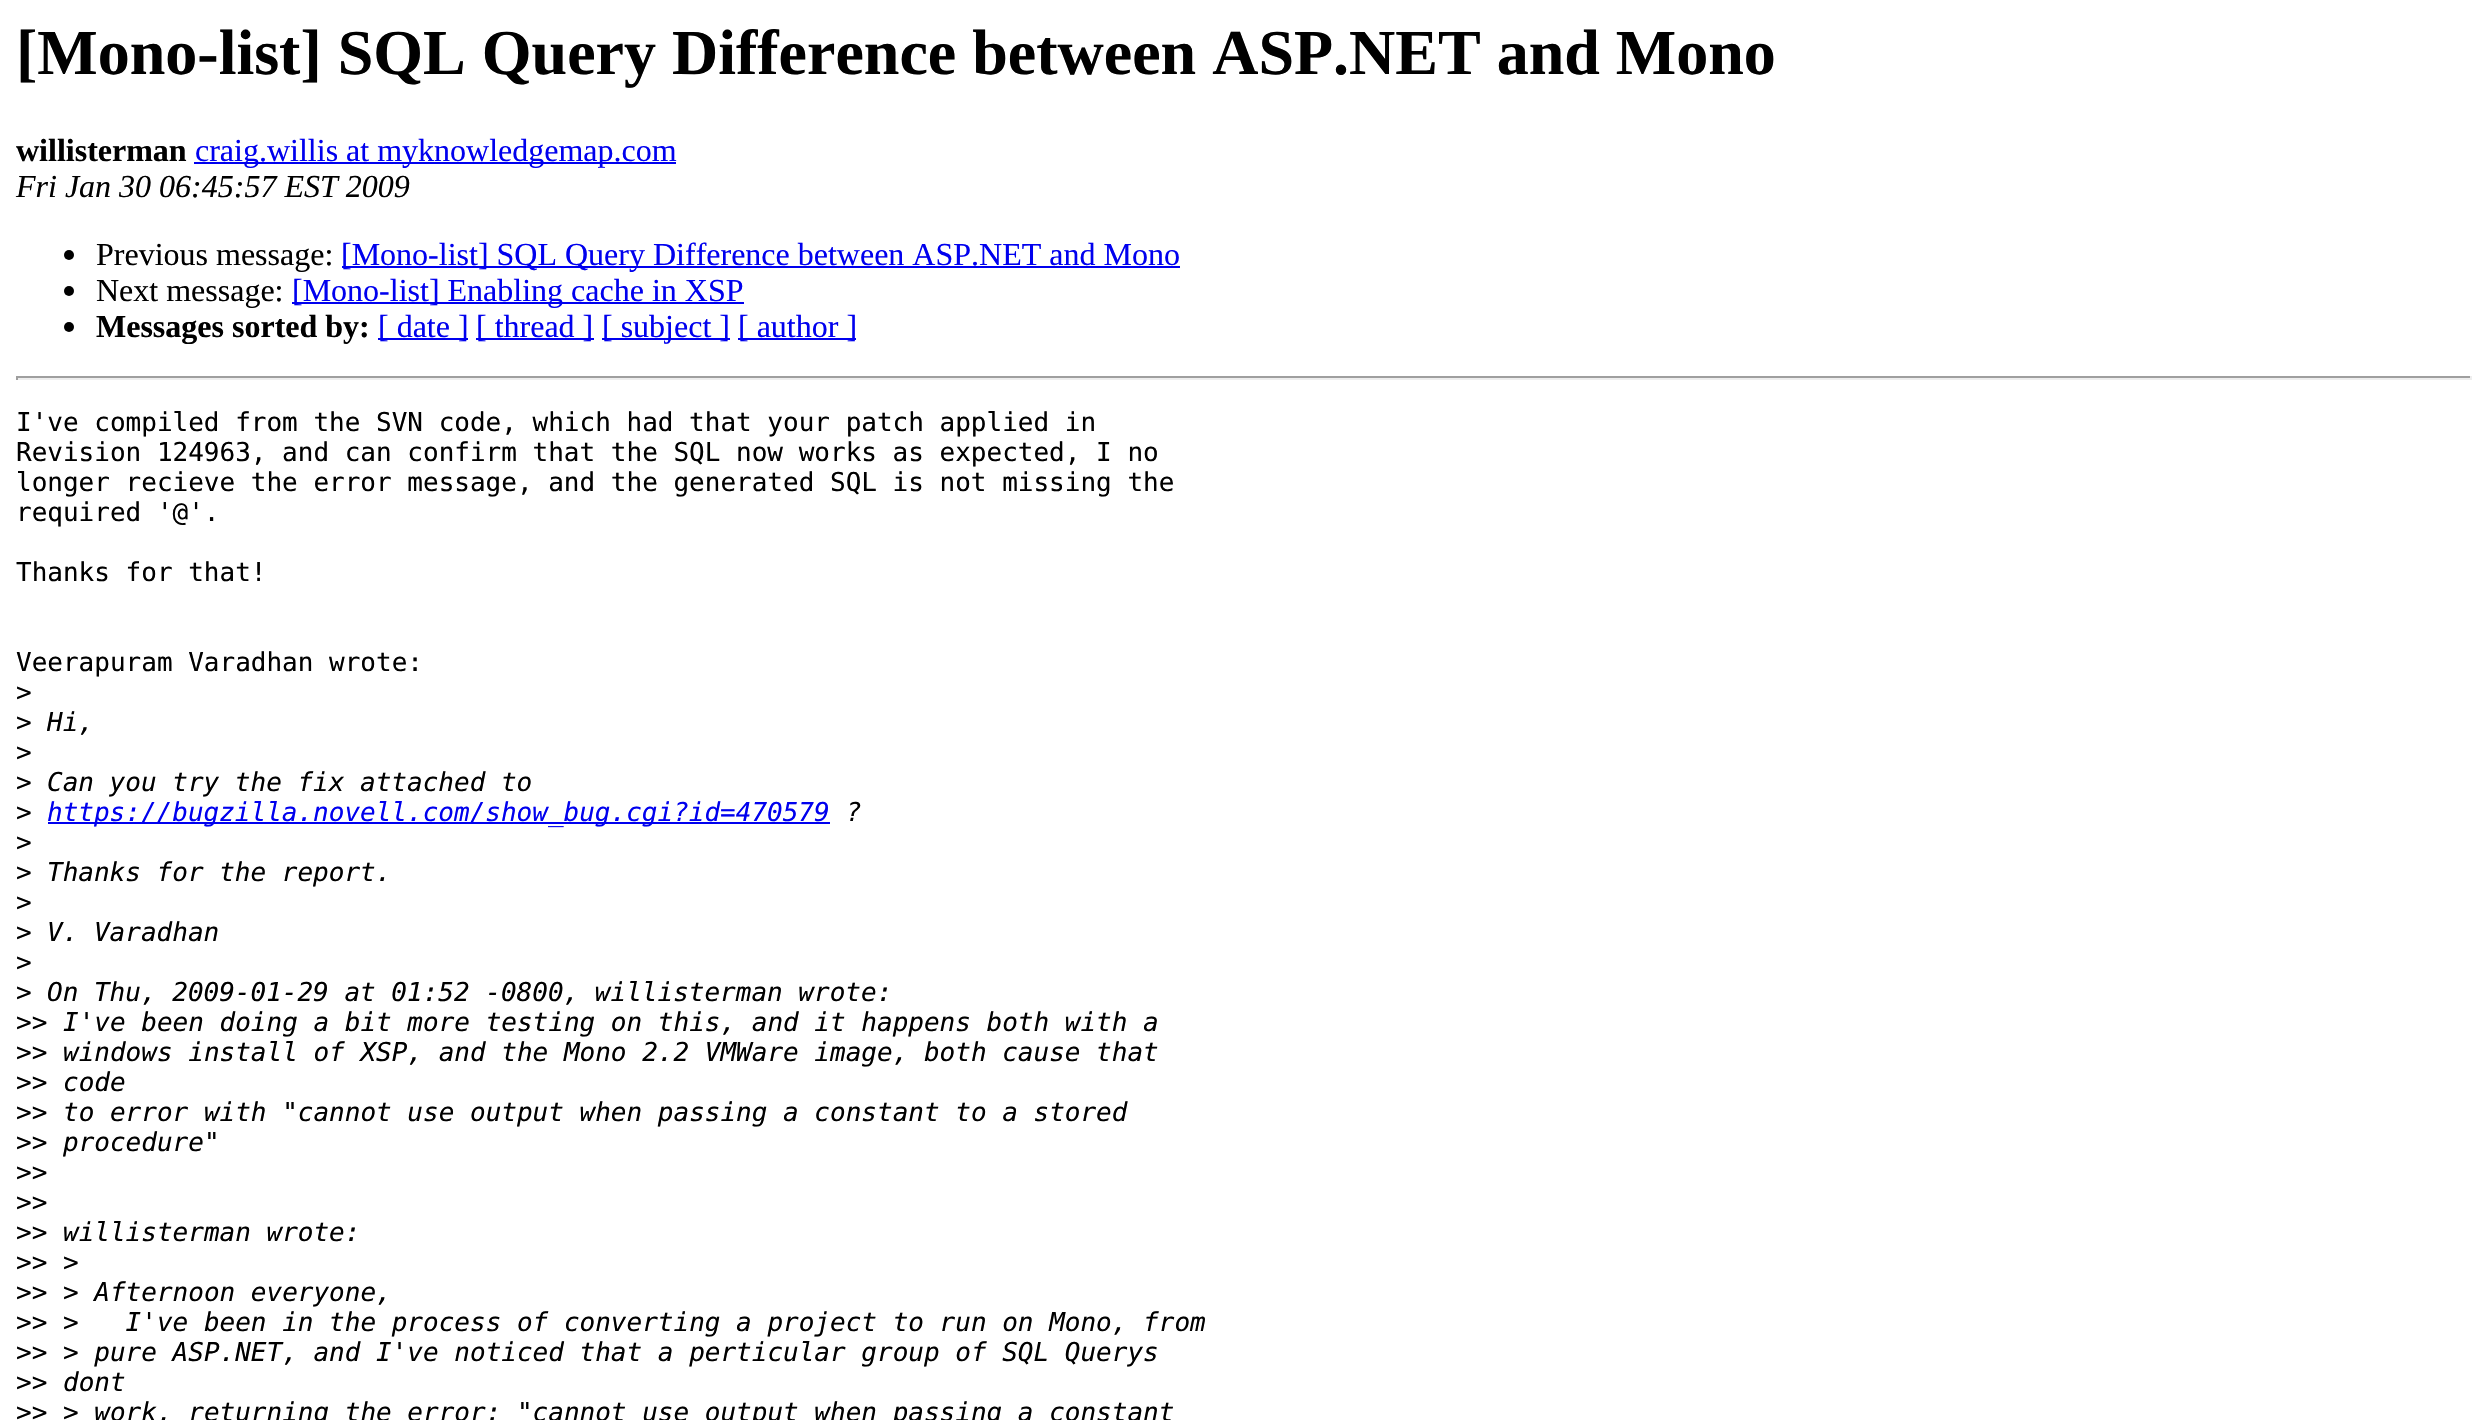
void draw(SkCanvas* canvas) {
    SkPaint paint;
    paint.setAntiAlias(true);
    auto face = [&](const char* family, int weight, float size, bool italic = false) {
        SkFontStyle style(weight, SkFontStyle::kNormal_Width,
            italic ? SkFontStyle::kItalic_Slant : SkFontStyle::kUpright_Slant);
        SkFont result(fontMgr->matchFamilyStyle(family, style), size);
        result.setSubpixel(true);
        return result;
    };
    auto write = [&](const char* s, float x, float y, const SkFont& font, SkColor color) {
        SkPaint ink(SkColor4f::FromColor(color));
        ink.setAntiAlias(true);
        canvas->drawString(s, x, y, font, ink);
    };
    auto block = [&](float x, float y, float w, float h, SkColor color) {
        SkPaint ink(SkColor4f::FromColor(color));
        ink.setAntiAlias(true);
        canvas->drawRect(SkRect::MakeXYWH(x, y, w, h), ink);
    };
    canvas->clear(SK_ColorWHITE);
    auto kFont1 = face("Liberation Serif", 700, 64);
    write("[Mono-list] SQL Query Difference between ASP.NET and Mono", 16, 74, kFont1, SK_ColorBLACK);
    auto kFont2 = face("Liberation Serif", 700, 32);
    write("willisterman", 16, 161, kFont2, SK_ColorBLACK);
    block(194, 162, 482, 2, SkColorSetRGB(0, 0, 238));
    auto kFont3 = face("Liberation Serif", 400, 32);
    write("craig.willis at myknowledgemap.com", 195, 161, kFont3, SkColorSetRGB(0, 0, 238));
    auto kFont4 = face("Liberation Serif", 400, 32, true);
    write("Fri Jan 30 06:45:57 EST 2009", 16, 197, kFont4, SK_ColorBLACK);
    paint.setColor(SK_ColorBLACK);
    canvas->drawCircle(69, 255, 5, paint);
    write("Previous message:", 96, 265, kFont3, SK_ColorBLACK);
    block(342, 266, 838, 2, SkColorSetRGB(0, 0, 238));
    write("[Mono-list] SQL Query Difference between ASP.NET and Mono", 341, 265, kFont3, SkColorSetRGB(0, 0, 238));
    canvas->drawCircle(69, 291, 5, paint);
    write("Next message:", 96, 301, kFont3, SK_ColorBLACK);
    block(292, 302, 452, 2, SkColorSetRGB(0, 0, 238));
    write("[Mono-list] Enabling cache in XSP", 292, 301, kFont3, SkColorSetRGB(0, 0, 238));
    canvas->drawCircle(69, 327, 5, paint);
    write("Messages sorted by:", 96, 337, kFont2, SK_ColorBLACK);
    block(378, 338, 90, 2, SkColorSetRGB(0, 0, 238));
    write("[ date ]", 378, 337, kFont3, SkColorSetRGB(0, 0, 238));
    block(476, 338, 118, 2, SkColorSetRGB(0, 0, 238));
    write("[ thread ]", 476, 337, kFont3, SkColorSetRGB(0, 0, 238));
    block(602, 338, 128, 2, SkColorSetRGB(0, 0, 238));
    write("[ subject ]", 602, 337, kFont3, SkColorSetRGB(0, 0, 238));
    block(738, 338, 118, 2, SkColorSetRGB(0, 0, 238));
    write("[ author ]", 738, 337, kFont3, SkColorSetRGB(0, 0, 238));
    block(16, 376, 2456, 2, SkColorSetRGB(159, 159, 159));
    block(2470, 376, 2, 4, SkColorSetRGB(238, 238, 238));
    block(16, 378, 2456, 2, SkColorSetRGB(238, 238, 238));
    block(16, 376, 2, 4, SkColorSetRGB(159, 159, 159));
    auto kFont5 = face("DejaVu Sans Mono", 400, 26);
    write("I've compiled from the SVN code, which had that your patch applied in", 16, 431, kFont5, SK_ColorBLACK);
    write("Revision 124963, and can confirm that the SQL now works as expected, I no", 16, 461, kFont5, SK_ColorBLACK);
    write("longer recieve the error message, and the generated SQL is not missing the", 16, 491, kFont5, SK_ColorBLACK);
    write("required '@'.", 16, 521, kFont5, SK_ColorBLACK);
    write("Thanks for that!", 16, 581, kFont5, SK_ColorBLACK);
    write("Veerapuram Varadhan wrote:", 16, 671, kFont5, SK_ColorBLACK);
    write(">", 16, 701, kFont5, SK_ColorBLACK);
    write(">", 16, 731, kFont5, SK_ColorBLACK);
    auto kFont6 = face("DejaVu Sans Mono", 400, 26, true);
    write("Hi,", 47, 731, kFont6, SK_ColorBLACK);
    write(">", 16, 761, kFont5, SK_ColorBLACK);
    write(">", 16, 791, kFont5, SK_ColorBLACK);
    write("Can you try the fix attached to", 47, 791, kFont6, SK_ColorBLACK);
    write(">", 16, 821, kFont5, SK_ColorBLACK);
    block(48, 822, 782, 2, SkColorSetRGB(0, 0, 238));
    write("https://bugzilla.novell.com/show_bug.cgi?id=470579", 47, 821, kFont6, SkColorSetRGB(0, 0, 238));
    write("?", 846, 821, kFont6, SK_ColorBLACK);
    write(">", 16, 851, kFont5, SK_ColorBLACK);
    write(">", 16, 881, kFont5, SK_ColorBLACK);
    write("Thanks for the report.", 47, 881, kFont6, SK_ColorBLACK);
    write(">", 16, 911, kFont5, SK_ColorBLACK);
    write(">", 16, 941, kFont5, SK_ColorBLACK);
    write("V. Varadhan", 47, 941, kFont6, SK_ColorBLACK);
    write(">", 16, 971, kFont5, SK_ColorBLACK);
    write(">", 16, 1001, kFont5, SK_ColorBLACK);
    write("On Thu, 2009-01-29 at 01:52 -0800, willisterman wrote:", 47, 1001, kFont6, SK_ColorBLACK);
    write(">>", 16, 1031, kFont5, SK_ColorBLACK);
    write("I've been doing a bit more testing on this, and it happens both with a", 63, 1031, kFont6, SK_ColorBLACK);
    write(">>", 16, 1061, kFont5, SK_ColorBLACK);
    write("windows install of XSP, and the Mono 2.2 VMWare image, both cause that", 63, 1061, kFont6, SK_ColorBLACK);
    write(">>", 16, 1091, kFont5, SK_ColorBLACK);
    write("code", 63, 1091, kFont6, SK_ColorBLACK);
    write(">>", 16, 1121, kFont5, SK_ColorBLACK);
    write("to error with \"cannot use output when passing a constant to a stored", 63, 1121, kFont6, SK_ColorBLACK);
    write(">>", 16, 1151, kFont5, SK_ColorBLACK);
    write("procedure\"", 63, 1151, kFont6, SK_ColorBLACK);
    write(">>", 16, 1181, kFont5, SK_ColorBLACK);
    write(">>", 16, 1211, kFont5, SK_ColorBLACK);
    write(">>", 16, 1241, kFont5, SK_ColorBLACK);
    write("willisterman wrote:", 63, 1241, kFont6, SK_ColorBLACK);
    write(">>", 16, 1271, kFont5, SK_ColorBLACK);
    write(">", 63, 1271, kFont6, SK_ColorBLACK);
    write(">>", 16, 1301, kFont5, SK_ColorBLACK);
    write("> Afternoon everyone,", 63, 1301, kFont6, SK_ColorBLACK);
    write(">>", 16, 1331, kFont5, SK_ColorBLACK);
    write(">   I've been in the process of converting a project to run on Mono, from", 63, 1331, kFont6, SK_ColorBLACK);
    write(">>", 16, 1361, kFont5, SK_ColorBLACK);
    write("> pure ASP.NET, and I've noticed that a perticular group of SQL Querys", 63, 1361, kFont6, SK_ColorBLACK);
    write(">>", 16, 1391, kFont5, SK_ColorBLACK);
    write("dont", 63, 1391, kFont6, SK_ColorBLACK);
    write(">>", 16, 1421, kFont5, SK_ColorBLACK);
    write("> work, returning the error: \"cannot use output when passing a constant", 63, 1421, kFont6, SK_ColorBLACK);
}
